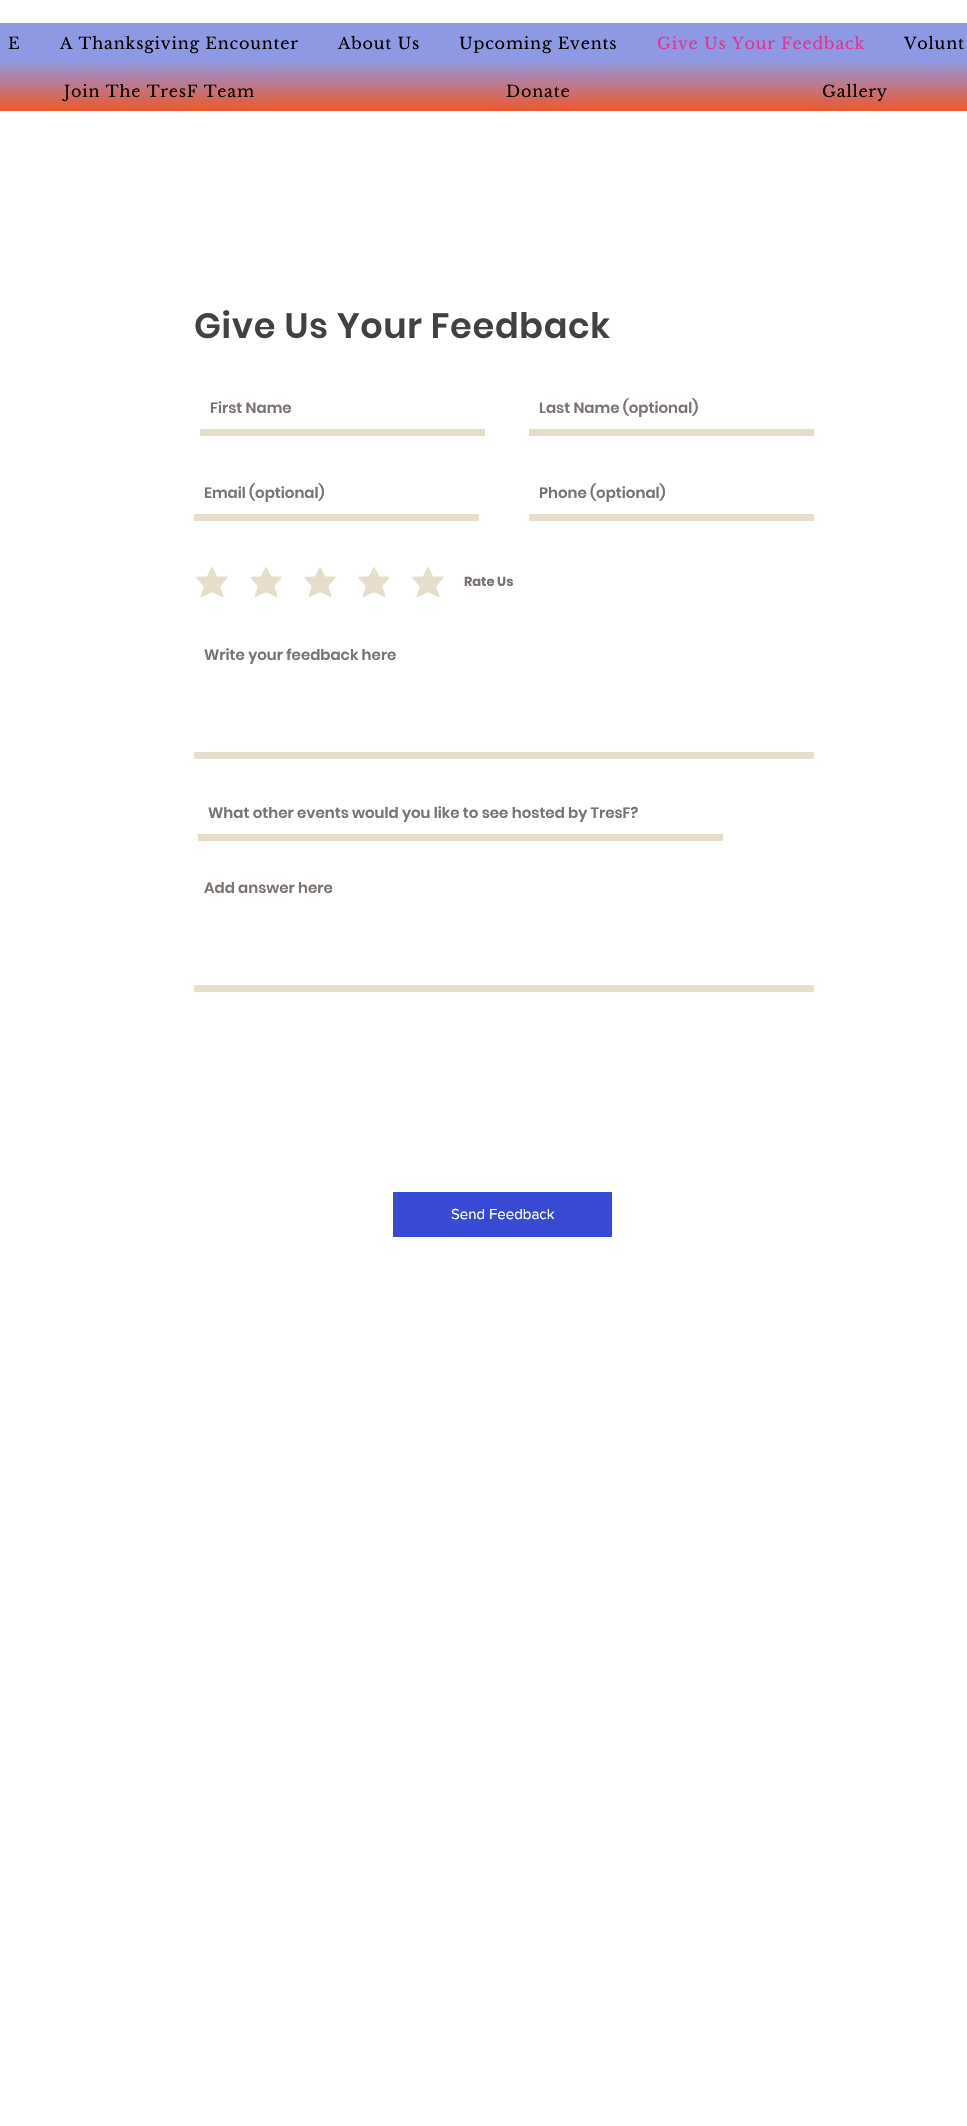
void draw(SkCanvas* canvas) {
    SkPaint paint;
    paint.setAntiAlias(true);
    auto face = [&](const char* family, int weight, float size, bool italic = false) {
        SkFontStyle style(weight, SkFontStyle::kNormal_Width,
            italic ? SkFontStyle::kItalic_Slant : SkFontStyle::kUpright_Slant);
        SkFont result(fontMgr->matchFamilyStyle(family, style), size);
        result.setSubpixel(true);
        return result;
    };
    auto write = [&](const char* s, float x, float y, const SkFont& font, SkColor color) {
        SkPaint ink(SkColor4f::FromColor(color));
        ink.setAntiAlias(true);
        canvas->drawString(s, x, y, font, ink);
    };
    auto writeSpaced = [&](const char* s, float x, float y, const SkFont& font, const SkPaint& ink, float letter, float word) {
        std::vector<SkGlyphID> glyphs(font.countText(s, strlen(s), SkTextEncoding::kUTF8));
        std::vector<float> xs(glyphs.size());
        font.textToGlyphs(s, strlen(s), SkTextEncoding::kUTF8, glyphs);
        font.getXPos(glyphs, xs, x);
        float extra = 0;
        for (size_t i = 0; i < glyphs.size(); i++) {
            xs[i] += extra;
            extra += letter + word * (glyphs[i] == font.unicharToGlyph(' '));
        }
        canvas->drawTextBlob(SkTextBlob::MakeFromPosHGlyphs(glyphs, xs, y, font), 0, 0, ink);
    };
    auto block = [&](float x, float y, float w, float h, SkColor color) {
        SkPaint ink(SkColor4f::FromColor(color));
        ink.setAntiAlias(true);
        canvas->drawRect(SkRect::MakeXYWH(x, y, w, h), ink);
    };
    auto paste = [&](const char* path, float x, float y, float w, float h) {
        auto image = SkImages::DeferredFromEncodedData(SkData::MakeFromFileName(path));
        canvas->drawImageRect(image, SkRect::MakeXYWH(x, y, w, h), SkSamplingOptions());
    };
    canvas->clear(SK_ColorWHITE);
    {
        const SkColor colors[] = {SkColorSetRGB(143, 152, 226), SkColorSetRGB(237, 88, 41)};
        const float stops[] = {0.43f, 1};
        const SkPoint ends[] = {{476, 23}, {476, 111}};
        paint.setShader(SkGradientShader::MakeLinear(ends, colors, stops, 2, SkTileMode::kClamp));
        paint.setAlpha(255);
    }
    canvas->drawRect(SkRect::MakeXYWH(0, 23, 967, 88), paint);
    auto kFont1 = face("Libre Baskerville", 400, 16);
    paint.setShader(nullptr);
    paint.setColor(SK_ColorBLACK);
    writeSpaced("E", 8, 49, kFont1, paint, 0.8f, 0);
    writeSpaced("A Thanksgiving Encounter", 60, 49, kFont1, paint, 0.8f, 0);
    writeSpaced("About Us", 338, 49, kFont1, paint, 0.8f, 0);
    writeSpaced("Upcoming Events", 459, 49, kFont1, paint, 0.8f, 0);
    paint.setColor(SkColorSetRGB(227, 50, 146));
    writeSpaced("Give Us Your Feedback", 657, 49, kFont1, paint, 0.8f, 0);
    paint.setColor(SK_ColorBLACK);
    writeSpaced("Volunt", 904, 49, kFont1, paint, 0.8f, 0);
    writeSpaced("Join The TresF Team", 64, 97, kFont1, paint, 0.8f, 0);
    writeSpaced("Donate", 506, 97, kFont1, paint, 0.8f, 0);
    writeSpaced("Gallery", 822, 97, kFont1, paint, 0.8f, 0);
    auto kFont2 = face("Poppins", 600, 35);
    paint.setColor(SkColorSetRGB(65, 65, 65));
    writeSpaced("Give Us Your Feedback", 194, 338, kFont2, paint, 0.7f, 0);
    block(200, 429, 285, 7, SkColorSetRGB(230, 222, 202));
    auto kFont3 = face("Poppins", 600, 15);
    write("First Name", 210, 413, kFont3, SkColorSetRGB(122, 115, 111));
    block(529, 429, 285, 7, SkColorSetRGB(230, 222, 202));
    write("Last Name (optional)", 539, 413, kFont3, SkColorSetRGB(122, 115, 111));
    block(194, 514, 285, 7, SkColorSetRGB(230, 222, 202));
    write("Email (optional)", 204, 498, kFont3, SkColorSetRGB(122, 115, 111));
    block(529, 514, 285, 7, SkColorSetRGB(230, 222, 202));
    write("Phone (optional)", 539, 498, kFont3, SkColorSetRGB(122, 115, 111));
    paste("pic1.png", 196, 567, 32, 30);
    paste("pic1.png", 250, 567, 32, 30);
    paste("pic1.png", 304, 567, 32, 30);
    paste("pic1.png", 358, 567, 32, 30);
    paste("pic1.png", 412, 567, 32, 30);
    auto kFont4 = face("Poppins", 700, 13);
    write("Rate Us", 464, 586, kFont4, SkColorSetRGB(122, 115, 111));
    block(194, 752, 620, 7, SkColorSetRGB(230, 222, 202));
    write("Write your feedback here", 204, 660, kFont3, SkColorSetRGB(122, 115, 111));
    block(198, 834, 525, 7, SkColorSetRGB(230, 222, 202));
    write("What other events would you like to see hosted by TresF?", 208, 818, kFont3, SkColorSetRGB(122, 115, 111));
    block(194, 985, 620, 7, SkColorSetRGB(230, 222, 202));
    write("Add answer here", 204, 893, kFont3, SkColorSetRGB(122, 115, 111));
    block(393, 1192, 219, 45, SkColorSetRGB(56, 74, 211));
    auto kFont5 = face("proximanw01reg", 400, 15);
    write("Send Feedback", 451, 1219, kFont5, SK_ColorWHITE);
}
